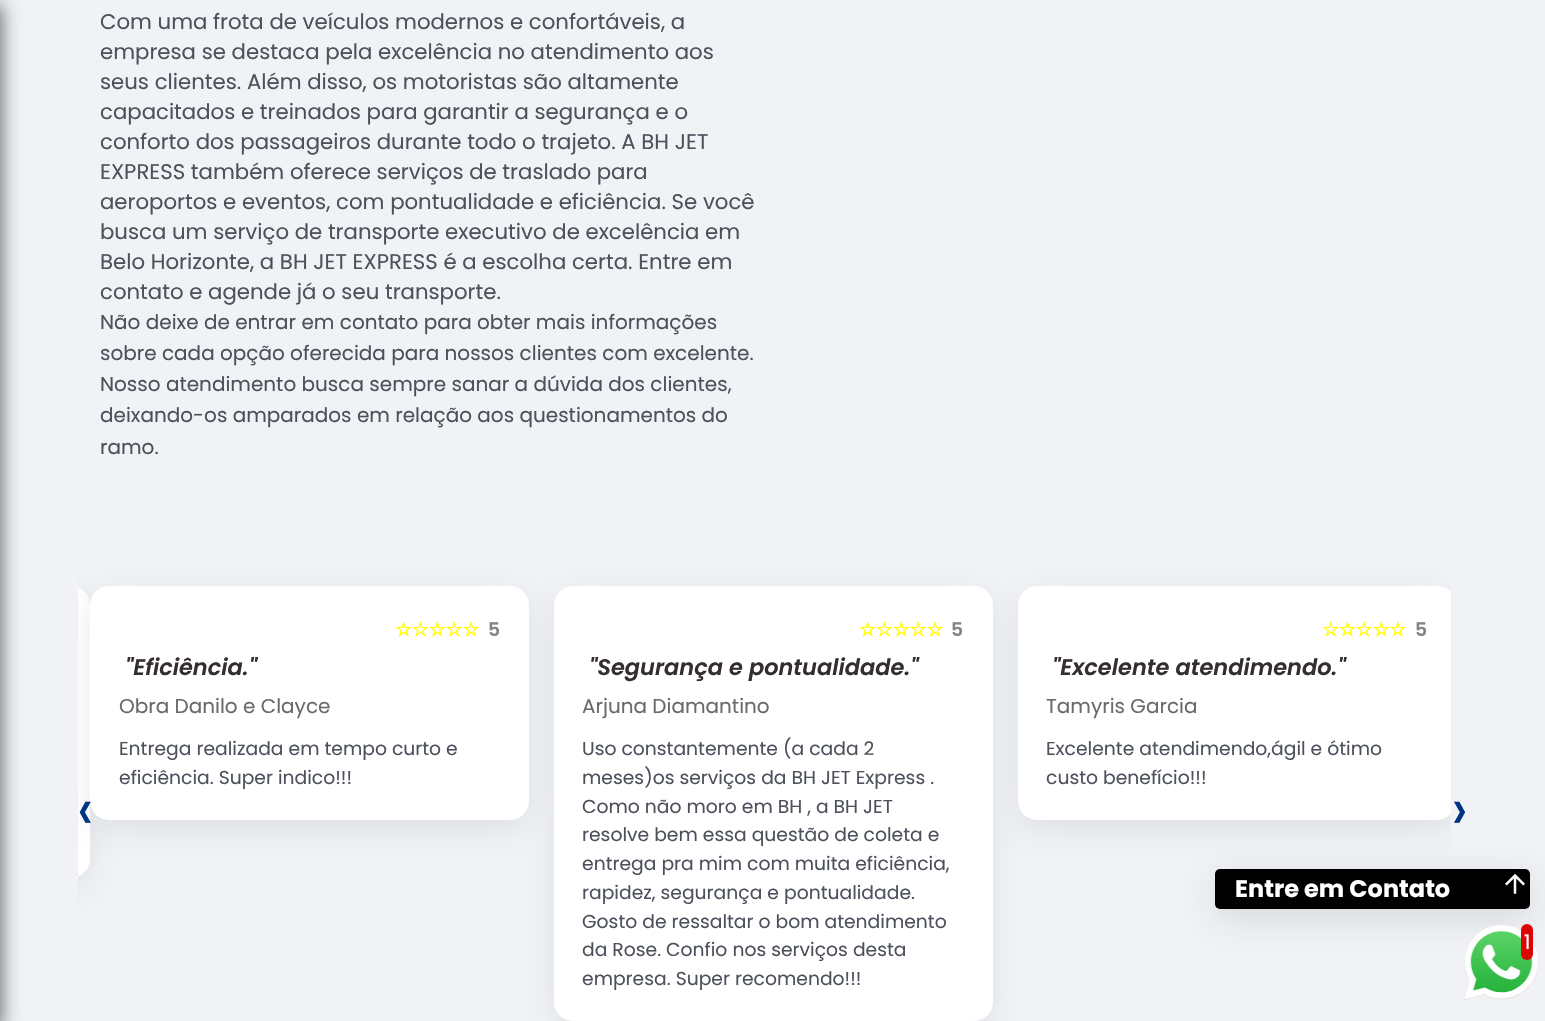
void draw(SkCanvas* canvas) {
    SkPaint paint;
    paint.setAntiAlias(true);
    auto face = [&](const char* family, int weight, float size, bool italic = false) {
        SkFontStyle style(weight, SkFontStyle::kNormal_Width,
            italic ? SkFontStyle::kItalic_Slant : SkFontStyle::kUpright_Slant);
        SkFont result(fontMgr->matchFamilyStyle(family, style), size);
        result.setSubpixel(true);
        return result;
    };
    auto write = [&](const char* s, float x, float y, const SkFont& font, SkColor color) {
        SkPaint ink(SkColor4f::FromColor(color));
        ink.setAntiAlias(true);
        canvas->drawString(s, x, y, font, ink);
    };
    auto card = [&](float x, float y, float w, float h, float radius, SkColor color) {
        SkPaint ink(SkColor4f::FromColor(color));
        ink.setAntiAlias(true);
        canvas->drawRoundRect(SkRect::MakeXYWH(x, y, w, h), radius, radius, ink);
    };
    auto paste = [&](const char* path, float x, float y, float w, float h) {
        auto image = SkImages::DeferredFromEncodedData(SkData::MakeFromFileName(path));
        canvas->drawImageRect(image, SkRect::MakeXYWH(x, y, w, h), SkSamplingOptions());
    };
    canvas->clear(SkColorSetRGB(240, 242, 245));
    paint.setColor(SkColorSetARGB(153, 0, 0, 0));
    paint.setMaskFilter(SkMaskFilter::MakeBlur(kNormal_SkBlurStyle, 9.5f));
    canvas->drawRect(SkRect::MakeXYWH(-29, 5, 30, 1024), paint);
    paint.setMaskFilter(nullptr);
    auto kFont1 = face("Poppins", 400, 21.25f);
    write("Com uma frota de veículos modernos e confortáveis, a", 100, 29, kFont1, SkColorSetRGB(77, 81, 92));
    write("empresa se destaca pela excelência no atendimento aos", 100, 59, kFont1, SkColorSetRGB(77, 81, 92));
    write("seus clientes. Além disso, os motoristas são altamente", 100, 89, kFont1, SkColorSetRGB(77, 81, 92));
    write("capacitados e treinados para garantir a segurança e o", 100, 119, kFont1, SkColorSetRGB(77, 81, 92));
    write("conforto dos passageiros durante todo o trajeto. A BH JET", 100, 149, kFont1, SkColorSetRGB(77, 81, 92));
    write("EXPRESS também oferece serviços de traslado para", 100, 179, kFont1, SkColorSetRGB(77, 81, 92));
    write("aeroportos e eventos, com pontualidade e eficiência. Se você", 100, 209, kFont1, SkColorSetRGB(77, 81, 92));
    write("busca um serviço de transporte executivo de excelência em", 100, 239, kFont1, SkColorSetRGB(77, 81, 92));
    write("Belo Horizonte, a BH JET EXPRESS é a escolha certa. Entre em", 100, 269, kFont1, SkColorSetRGB(77, 81, 92));
    write("contato e agende já o seu transporte.", 100, 299, kFont1, SkColorSetRGB(77, 81, 92));
    auto kFont2 = face("Poppins", 400, 20);
    write("Não deixe de entrar em contato para obter mais informações", 100, 329, kFont2, SkColorSetRGB(77, 81, 92));
    write("sobre cada opção oferecida para nossos clientes com excelente.", 100, 360, kFont2, SkColorSetRGB(77, 81, 92));
    write("Nosso atendimento busca sempre sanar a dúvida dos clientes,", 100, 391, kFont2, SkColorSetRGB(77, 81, 92));
    write("deixando-os amparados em relação aos questionamentos do", 100, 422, kFont2, SkColorSetRGB(77, 81, 92));
    write("ramo.", 100, 454, kFont2, SkColorSetRGB(77, 81, 92));
    canvas->save();
    canvas->clipRect(SkRect::MakeXYWH(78, 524, 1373, 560));
    paint.setColor(SkColorSetARGB(51, 149, 157, 165));
    paint.setMaskFilter(SkMaskFilter::MakeBlur(kNormal_SkBlurStyle, 15));
    canvas->drawRoundRect(SkRect::MakeXYWH(-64, 596, 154, 292), 19, 19, paint);
    paint.setMaskFilter(nullptr);
    canvas->restore();
    paint.setColor(SK_ColorWHITE);
    canvas->drawPath(SkPathBuilder().moveTo(78, 586).lineTo(71, 586).cubicTo(81.5f, 586, 90, 594.5f, 90, 605).lineTo(90, 859).cubicTo(90, 869.5f, 81.5f, 878, 71, 878).lineTo(78, 878).close().detach(), paint);
    canvas->save();
    canvas->clipRect(SkRect::MakeXYWH(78, 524, 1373, 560));
    paint.setColor(SkColorSetARGB(51, 149, 157, 165));
    paint.setMaskFilter(SkMaskFilter::MakeBlur(kNormal_SkBlurStyle, 15));
    canvas->drawRoundRect(SkRect::MakeXYWH(90, 596, 439, 234), 19, 19, paint);
    paint.setMaskFilter(nullptr);
    canvas->restore();
    card(90, 586, 439, 234, 19, SK_ColorWHITE);
    auto kFont3 = face("DejaVu Sans", 700, 18.75f);
    write("☆☆☆☆☆", 395, 636, kFont3, SkColorSetRGB(255, 255, 0));
    auto kFont4 = face("Poppins", 600, 18.75f);
    write("5", 488, 636, kFont4, SkColorSetRGB(135, 129, 129));
    auto kFont5 = face("Poppins", 600, 22.5f, true);
    write("\"Eficiência.\"", 125, 675, kFont5, SkColorSetRGB(53, 46, 46));
    write("Obra Danilo e Clayce", 119, 713, kFont2, SkColorSetRGB(107, 106, 106));
    auto kFont6 = face("Poppins", 400, 18.75f);
    write("Entrega realizada em tempo curto e", 119, 755, kFont6, SkColorSetRGB(77, 81, 92));
    write("eficiência. Super indico!!!", 119, 784, kFont6, SkColorSetRGB(77, 81, 92));
    paint.setMaskFilter(SkMaskFilter::MakeBlur(kNormal_SkBlurStyle, 15));
    canvas->drawRoundRect(SkRect::MakeXYWH(554, 596, 439, 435), 19, 19, paint);
    paint.setMaskFilter(nullptr);
    card(554, 586, 439, 435, 19, SK_ColorWHITE);
    write("☆☆☆☆☆", 859, 636, kFont3, SkColorSetRGB(255, 255, 0));
    write("5", 951, 636, kFont4, SkColorSetRGB(135, 129, 129));
    write("\"Segurança e pontualidade.\"", 589, 675, kFont5, SkColorSetRGB(53, 46, 46));
    write("Arjuna Diamantino", 582, 713, kFont2, SkColorSetRGB(107, 106, 106));
    write("Uso constantemente (a cada 2", 582, 755, kFont6, SkColorSetRGB(77, 81, 92));
    write("meses)os serviços da BH JET Express .", 582, 784, kFont6, SkColorSetRGB(77, 81, 92));
    write("Como não moro em BH , a BH JET", 582, 813, kFont6, SkColorSetRGB(77, 81, 92));
    write("resolve bem essa questão de coleta e", 582, 841, kFont6, SkColorSetRGB(77, 81, 92));
    write("entrega pra mim com muita eficiência,", 582, 870, kFont6, SkColorSetRGB(77, 81, 92));
    write("rapidez, segurança e pontualidade.", 582, 899, kFont6, SkColorSetRGB(77, 81, 92));
    write("Gosto de ressaltar o bom atendimento", 582, 928, kFont6, SkColorSetRGB(77, 81, 92));
    write("da Rose. Confio nos serviços desta", 582, 956, kFont6, SkColorSetRGB(77, 81, 92));
    write("empresa. Super recomendo!!!", 582, 985, kFont6, SkColorSetRGB(77, 81, 92));
    canvas->save();
    canvas->clipRect(SkRect::MakeXYWH(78, 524, 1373, 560));
    paint.setMaskFilter(SkMaskFilter::MakeBlur(kNormal_SkBlurStyle, 15));
    canvas->drawRoundRect(SkRect::MakeXYWH(1018, 596, 438, 234), 19, 19, paint);
    paint.setMaskFilter(nullptr);
    canvas->restore();
    auto kFont7 = face("Poppins", 400, 60);
    write("›", 1451, 830, kFont7, SkColorSetRGB(0, 53, 130));
    canvas->save();
    canvas->clipRect(SkRect::MakeXYWH(78, 524, 1373, 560));
    card(1018, 586, 438, 234, 19, SK_ColorWHITE);
    canvas->restore();
    write("☆☆☆☆☆", 1322, 636, kFont3, SkColorSetRGB(255, 255, 0));
    write("5", 1415, 636, kFont4, SkColorSetRGB(135, 129, 129));
    write("\"Excelente atendimendo.\"", 1052, 675, kFont5, SkColorSetRGB(53, 46, 46));
    write("Tamyris Garcia", 1046, 713, kFont2, SkColorSetRGB(107, 106, 106));
    write("Excelente atendimendo,ágil e ótimo", 1046, 755, kFont6, SkColorSetRGB(77, 81, 92));
    write("custo benefício!!!", 1046, 784, kFont6, SkColorSetRGB(77, 81, 92));
    write("‹", 77, 830, kFont7, SkColorSetRGB(0, 53, 130));
    paint.setColor(SkColorSetARGB(51, 100, 100, 111));
    paint.setMaskFilter(SkMaskFilter::MakeBlur(kNormal_SkBlurStyle, 18));
    canvas->drawRoundRect(SkRect::MakeXYWH(1215, 878, 315, 40), 5, 5, paint);
    paint.setMaskFilter(nullptr);
    card(1215, 869, 315, 40, 5, SK_ColorBLACK);
    auto kFont8 = face("Poppins", 700, 24);
    write("Entre em Contato", 1235, 897, kFont8, SK_ColorWHITE);
    paste("pic1.png", 1505, 873, 20, 21);
    paste("pic2.png", 1464, 925, 75, 75);
    card(1521, 924, 12, 36, 6, SkColorSetRGB(221, 5, 5));
    write("1", 1524, 949, kFont2, SK_ColorWHITE);
}
